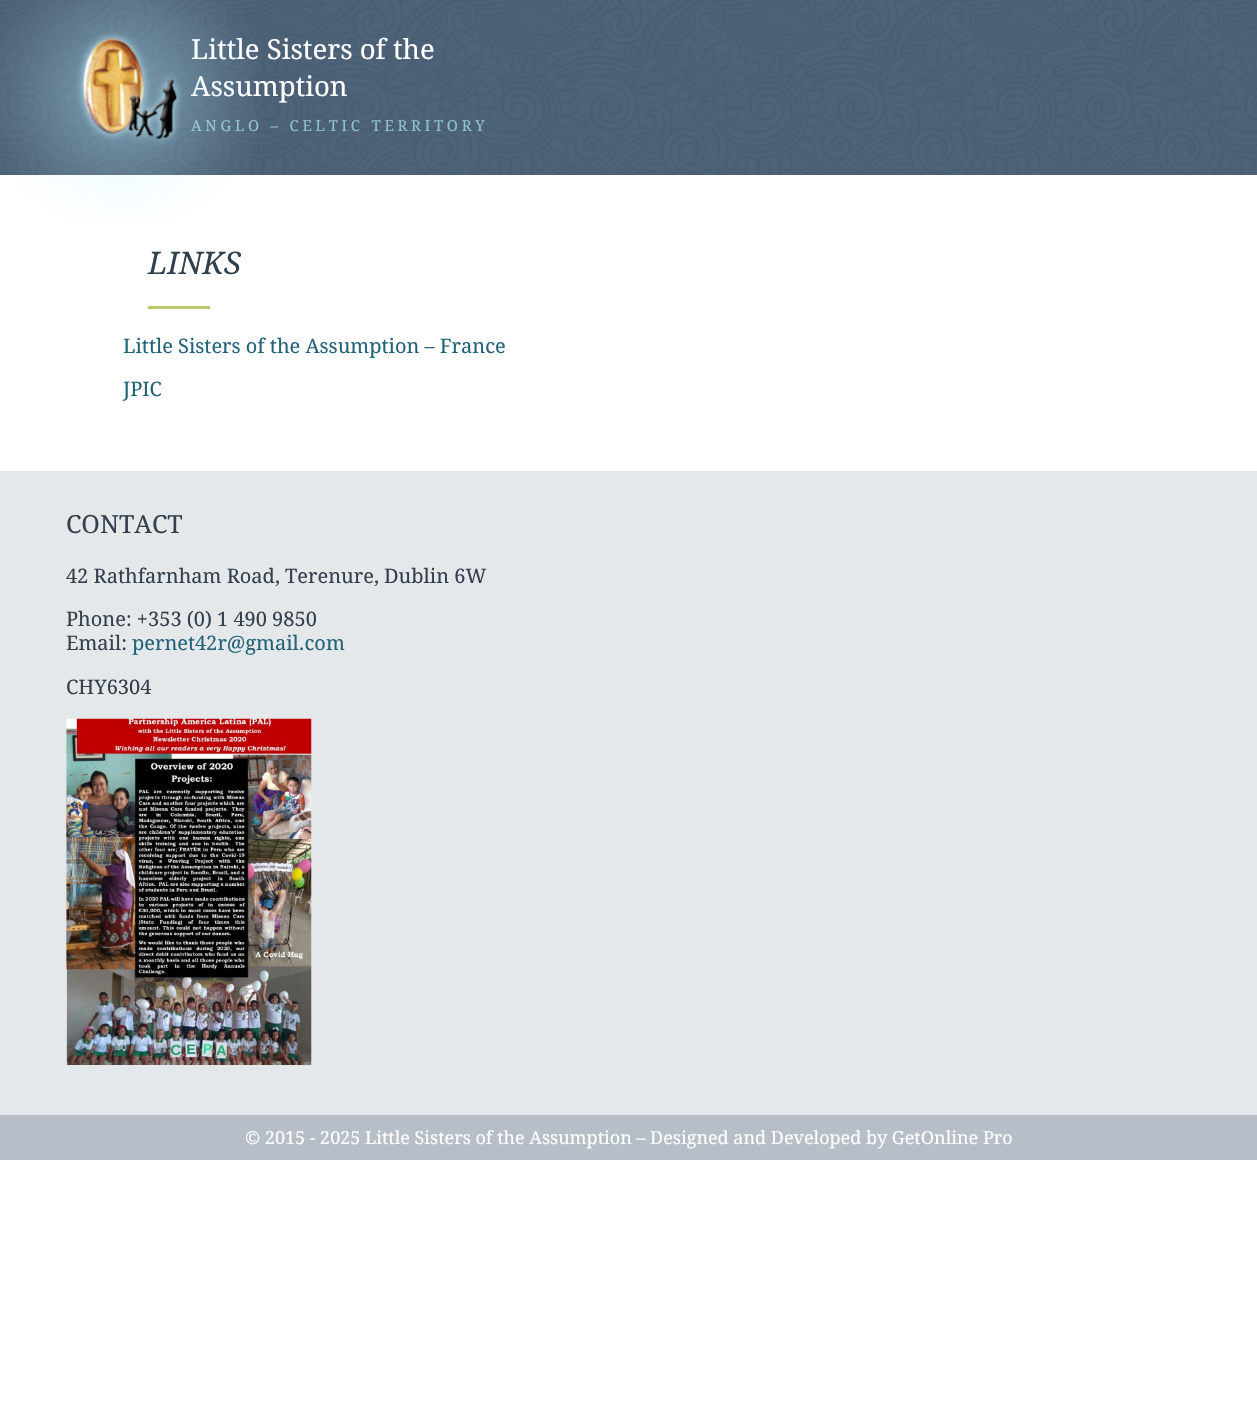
void draw(SkCanvas* canvas) {
    SkPaint paint;
    paint.setAntiAlias(true);
    auto face = [&](const char* family, int weight, float size, bool italic = false) {
        SkFontStyle style(weight, SkFontStyle::kNormal_Width,
            italic ? SkFontStyle::kItalic_Slant : SkFontStyle::kUpright_Slant);
        SkFont result(fontMgr->matchFamilyStyle(family, style), size);
        result.setSubpixel(true);
        return result;
    };
    auto write = [&](const char* s, float x, float y, const SkFont& font, SkColor color) {
        SkPaint ink(SkColor4f::FromColor(color));
        ink.setAntiAlias(true);
        canvas->drawString(s, x, y, font, ink);
    };
    auto writeSpaced = [&](const char* s, float x, float y, const SkFont& font, const SkPaint& ink, float letter, float word) {
        std::vector<SkGlyphID> glyphs(font.countText(s, strlen(s), SkTextEncoding::kUTF8));
        std::vector<float> xs(glyphs.size());
        font.textToGlyphs(s, strlen(s), SkTextEncoding::kUTF8, glyphs);
        font.getXPos(glyphs, xs, x);
        float extra = 0;
        for (size_t i = 0; i < glyphs.size(); i++) {
            xs[i] += extra;
            extra += letter + word * (glyphs[i] == font.unicharToGlyph(' '));
        }
        canvas->drawTextBlob(SkTextBlob::MakeFromPosHGlyphs(glyphs, xs, y, font), 0, 0, ink);
    };
    auto block = [&](float x, float y, float w, float h, SkColor color) {
        SkPaint ink(SkColor4f::FromColor(color));
        ink.setAntiAlias(true);
        canvas->drawRect(SkRect::MakeXYWH(x, y, w, h), ink);
    };
    auto paste = [&](const char* path, float x, float y, float w, float h) {
        auto image = SkImages::DeferredFromEncodedData(SkData::MakeFromFileName(path));
        canvas->drawImageRect(image, SkRect::MakeXYWH(x, y, w, h), SkSamplingOptions());
    };
    canvas->clear(SK_ColorWHITE);
    paste("pic1.png", 0, 0, 1257, 175);
    auto kFont1 = face("Droid Serif", 400, 27.5f);
    write("Little Sisters of the", 191, 59, kFont1, SK_ColorWHITE);
    write("Assumption", 191, 96, kFont1, SK_ColorWHITE);
    auto kFont2 = face("Droid Serif", 400, 15);
    paint.setColor(SkColorSetRGB(143, 194, 205));
    writeSpaced("ANGLO – CELTIC TERRITORY", 191, 131, kFont2, paint, 3.75f, 0);
    paste("pic2.png", 0, 0, 257, 218);
    auto kFont3 = face("Droid Serif", 400, 31, true);
    write("LINKS", 148, 274, kFont3, SkColorSetRGB(50, 63, 76));
    block(148, 306, 62, 3, SkColorSetRGB(191, 198, 108));
    auto kFont4 = face("Droid Serif", 400, 20);
    write("Little Sisters of the Assumption – France", 123, 353, kFont4, SkColorSetRGB(33, 98, 121));
    write("JPIC", 123, 396, kFont4, SkColorSetRGB(33, 98, 121));
    block(0, 471, 1257, 644, SkColorSetRGB(229, 232, 235));
    auto kFont5 = face("Droid Serif", 400, 25);
    write("CONTACT", 66, 533, kFont5, SkColorSetRGB(50, 63, 76));
    write("42 Rathfarnham Road, Terenure, Dublin 6W", 66, 583, kFont4, SkColorSetRGB(50, 63, 76));
    write("Phone: +353 (0) 1 490 9850", 66, 626, kFont4, SkColorSetRGB(50, 63, 76));
    write("Email:", 66, 650, kFont4, SkColorSetRGB(50, 63, 76));
    write("pernet42r@gmail.com", 132, 650, kFont4, SkColorSetRGB(33, 98, 121));
    write("CHY6304", 66, 694, kFont4, SkColorSetRGB(50, 63, 76));
    paste("pic3.png", 66, 718, 246, 347);
    block(0, 1115, 1257, 45, SkColorSetRGB(182, 191, 200));
    auto kFont6 = face("Droid Serif", 400, 18);
    write("© 2015 - 2025 Little Sisters of the Assumption – Designed and Developed by GetOnline Pro", 245, 1144, kFont6, SK_ColorWHITE);
}
